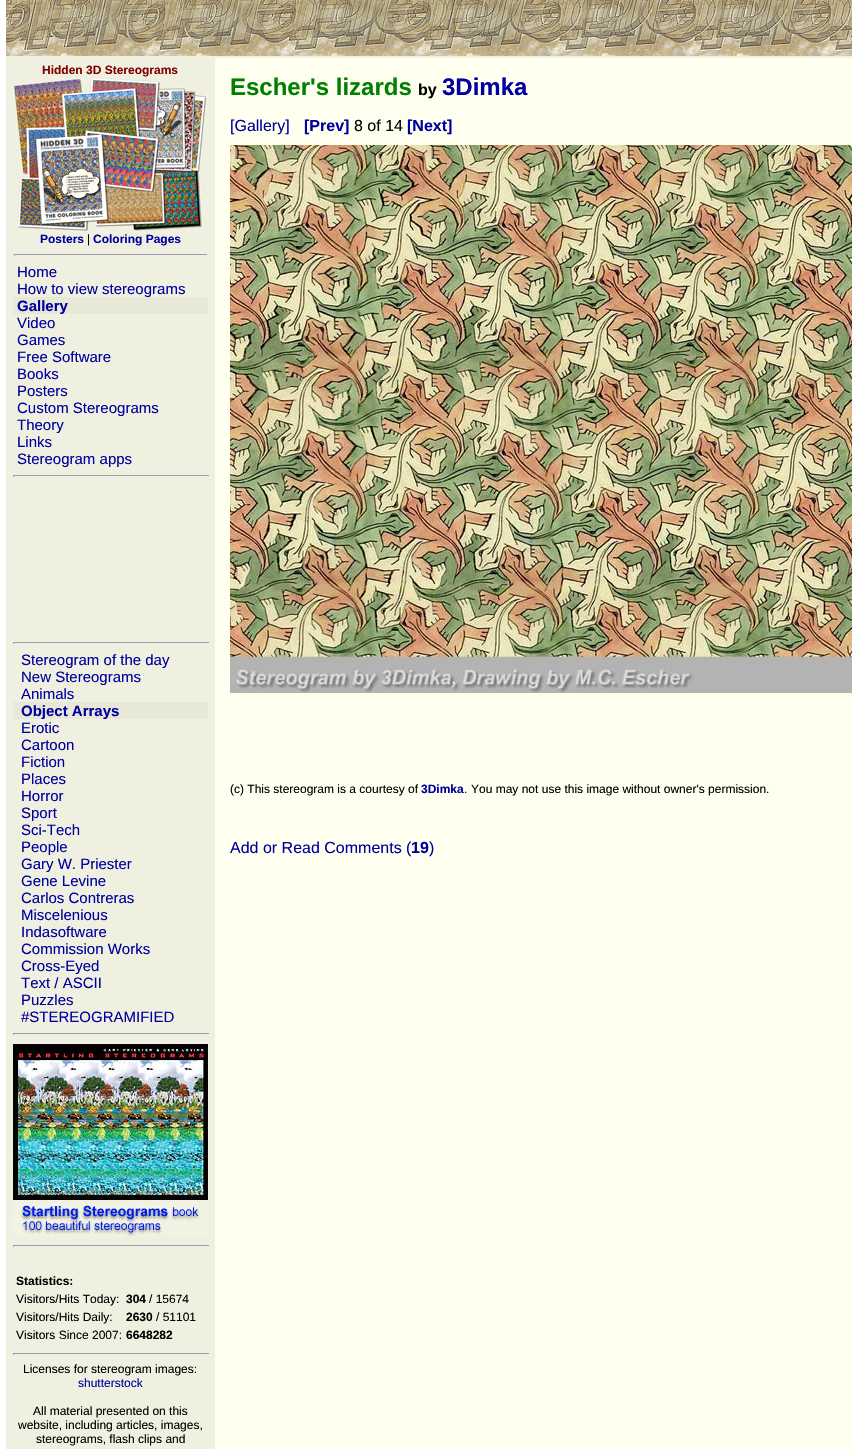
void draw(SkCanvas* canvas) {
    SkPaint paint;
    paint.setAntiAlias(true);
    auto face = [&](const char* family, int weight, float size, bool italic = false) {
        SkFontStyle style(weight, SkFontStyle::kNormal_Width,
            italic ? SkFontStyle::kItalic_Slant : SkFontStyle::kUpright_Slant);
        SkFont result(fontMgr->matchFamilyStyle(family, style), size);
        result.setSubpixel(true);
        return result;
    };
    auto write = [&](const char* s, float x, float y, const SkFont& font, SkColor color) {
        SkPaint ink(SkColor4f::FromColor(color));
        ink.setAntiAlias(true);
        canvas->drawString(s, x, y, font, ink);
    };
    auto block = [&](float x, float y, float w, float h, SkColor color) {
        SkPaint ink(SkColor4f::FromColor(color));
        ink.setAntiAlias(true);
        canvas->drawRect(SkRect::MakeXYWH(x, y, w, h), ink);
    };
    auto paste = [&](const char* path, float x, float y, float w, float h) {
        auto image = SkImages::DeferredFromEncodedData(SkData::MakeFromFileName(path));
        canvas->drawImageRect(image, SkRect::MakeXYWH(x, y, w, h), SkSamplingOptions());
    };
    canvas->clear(SK_ColorWHITE);
    block(6, 56, 846, 1393, SkColorSetRGB(240, 240, 224));
    paste("pic1.png", 6, 0, 675, 56);
    paste("pic2.png", 681, 0, 171, 56);
    auto kFont1 = face("Liberation Sans", 700, 12);
    write("Hidden 3D Stereograms", 42, 74, kFont1, SkColorSetRGB(128, 0, 0));
    paste("pic3.png", 13, 77, 195, 155);
    write("Posters", 40, 243, kFont1, SkColorSetRGB(0, 0, 160));
    auto kFont2 = face("Liberation Sans", 400, 12);
    write("|", 87, 243, kFont2, SK_ColorBLACK);
    write("Coloring Pages", 93, 243, kFont1, SkColorSetRGB(0, 0, 160));
    block(14, 254, 194, 1, SkColorSetRGB(159, 159, 159));
    block(207, 254, 1, 2, SkColorSetRGB(238, 238, 238));
    block(14, 255, 194, 1, SkColorSetRGB(238, 238, 238));
    block(14, 254, 1, 2, SkColorSetRGB(159, 159, 159));
    auto kFont3 = face("Liberation Sans", 400, 15);
    write("Home", 17, 277, kFont3, SkColorSetRGB(0, 0, 160));
    block(13, 297, 195, 17, SkColorSetRGB(232, 232, 216));
    write("How to view stereograms", 17, 294, kFont3, SkColorSetRGB(0, 0, 160));
    auto kFont4 = face("Liberation Sans", 700, 15);
    write("Gallery", 17, 311, kFont4, SkColorSetRGB(0, 0, 160));
    write("Video", 17, 328, kFont3, SkColorSetRGB(0, 0, 160));
    write("Games", 17, 345, kFont3, SkColorSetRGB(0, 0, 160));
    write("Free Software", 17, 362, kFont3, SkColorSetRGB(0, 0, 160));
    write("Books", 17, 379, kFont3, SkColorSetRGB(0, 0, 160));
    write("Posters", 17, 396, kFont3, SkColorSetRGB(0, 0, 160));
    write("Custom Stereograms", 17, 413, kFont3, SkColorSetRGB(0, 0, 160));
    write("Theory", 17, 430, kFont3, SkColorSetRGB(0, 0, 160));
    write("Links", 17, 447, kFont3, SkColorSetRGB(0, 0, 160));
    write("Stereogram apps", 17, 464, kFont3, SkColorSetRGB(0, 0, 160));
    block(13, 475, 197, 1, SkColorSetRGB(159, 159, 159));
    block(209, 475, 1, 2, SkColorSetRGB(238, 238, 238));
    block(13, 476, 197, 1, SkColorSetRGB(238, 238, 238));
    block(13, 475, 1, 2, SkColorSetRGB(159, 159, 159));
    block(13, 642, 197, 1, SkColorSetRGB(159, 159, 159));
    block(209, 642, 1, 2, SkColorSetRGB(238, 238, 238));
    block(13, 643, 197, 1, SkColorSetRGB(238, 238, 238));
    block(13, 642, 1, 2, SkColorSetRGB(159, 159, 159));
    write("Stereogram of the day", 21, 665, kFont3, SkColorSetRGB(0, 0, 160));
    write("New Stereograms", 21, 682, kFont3, SkColorSetRGB(0, 0, 160));
    write("Animals", 21, 699, kFont3, SkColorSetRGB(0, 0, 160));
    block(13, 702, 195, 17, SkColorSetRGB(232, 232, 216));
    write("Object Arrays", 21, 716, kFont4, SkColorSetRGB(0, 0, 160));
    write("Erotic", 21, 733, kFont3, SkColorSetRGB(0, 0, 160));
    write("Cartoon", 21, 750, kFont3, SkColorSetRGB(0, 0, 160));
    write("Fiction", 21, 767, kFont3, SkColorSetRGB(0, 0, 160));
    write("Places", 21, 784, kFont3, SkColorSetRGB(0, 0, 160));
    write("Horror", 21, 801, kFont3, SkColorSetRGB(0, 0, 160));
    write("Sport", 21, 818, kFont3, SkColorSetRGB(0, 0, 160));
    write("Sci-Tech", 21, 835, kFont3, SkColorSetRGB(0, 0, 160));
    write("People", 21, 852, kFont3, SkColorSetRGB(0, 0, 160));
    write("Gary W. Priester", 21, 869, kFont3, SkColorSetRGB(0, 0, 160));
    write("Gene Levine", 21, 886, kFont3, SkColorSetRGB(0, 0, 160));
    write("Carlos Contreras", 21, 903, kFont3, SkColorSetRGB(0, 0, 160));
    write("Miscelenious", 21, 920, kFont3, SkColorSetRGB(0, 0, 160));
    write("Indasoftware", 21, 937, kFont3, SkColorSetRGB(0, 0, 160));
    write("Commission Works", 21, 954, kFont3, SkColorSetRGB(0, 0, 160));
    write("Cross-Eyed", 21, 971, kFont3, SkColorSetRGB(0, 0, 160));
    write("Text / ASCII", 21, 988, kFont3, SkColorSetRGB(0, 0, 160));
    write("Puzzles", 21, 1005, kFont3, SkColorSetRGB(0, 0, 160));
    write("#STEREOGRAMIFIED", 21, 1022, kFont3, SkColorSetRGB(0, 0, 160));
    block(13, 1033, 197, 1, SkColorSetRGB(159, 159, 159));
    block(209, 1033, 1, 2, SkColorSetRGB(238, 238, 238));
    block(13, 1034, 197, 1, SkColorSetRGB(238, 238, 238));
    block(13, 1033, 1, 2, SkColorSetRGB(159, 159, 159));
    paste("pic4.png", 13, 1042, 195, 194);
    block(13, 1245, 197, 1, SkColorSetRGB(159, 159, 159));
    block(209, 1245, 1, 2, SkColorSetRGB(238, 238, 238));
    block(13, 1246, 197, 1, SkColorSetRGB(238, 238, 238));
    block(13, 1245, 1, 2, SkColorSetRGB(159, 159, 159));
    write("Statistics:", 16, 1285, kFont1, SK_ColorBLACK);
    write("Visitors/Hits Today:", 16, 1303, kFont2, SK_ColorBLACK);
    write("304", 126, 1303, kFont1, SK_ColorBLACK);
    write("/ 15674", 149, 1303, kFont2, SK_ColorBLACK);
    write("Visitors/Hits Daily:", 16, 1321, kFont2, SK_ColorBLACK);
    write("2630", 126, 1321, kFont1, SK_ColorBLACK);
    write("/ 51101", 156, 1321, kFont2, SK_ColorBLACK);
    write("Visitors Since 2007:", 16, 1339, kFont2, SK_ColorBLACK);
    write("6648282", 126, 1339, kFont1, SK_ColorBLACK);
    block(13, 1353, 197, 1, SkColorSetRGB(159, 159, 159));
    block(209, 1353, 1, 2, SkColorSetRGB(238, 238, 238));
    block(13, 1354, 197, 1, SkColorSetRGB(238, 238, 238));
    block(13, 1353, 1, 2, SkColorSetRGB(159, 159, 159));
    write("Licenses for stereogram images:", 23, 1373, kFont2, SK_ColorBLACK);
    write("shutterstock", 78, 1387, kFont2, SkColorSetRGB(0, 0, 160));
    write("All material presented on this", 33, 1415, kFont2, SK_ColorBLACK);
    write("website, including articles, images,", 18, 1429, kFont2, SK_ColorBLACK);
    write("stereograms, flash clips and", 36, 1443, kFont2, SK_ColorBLACK);
    block(215, 58, 637, 1391, SkColorSetRGB(255, 255, 240));
    auto kFont5 = face("Liberation Sans", 700, 24);
    write("Escher's lizards", 230, 95, kFont5, SkColorSetRGB(0, 128, 0));
    auto kFont6 = face("Liberation Sans", 700, 16);
    write("by", 418, 95, kFont6, SK_ColorBLACK);
    write("3Dimka", 442, 95, kFont5, SkColorSetRGB(0, 0, 160));
    auto kFont7 = face("Liberation Sans", 400, 16);
    write("[Gallery]", 230, 131, kFont7, SkColorSetRGB(0, 0, 160));
    write("[Prev]", 304, 131, kFont6, SkColorSetRGB(0, 0, 160));
    write("8 of 14", 354, 131, kFont7, SK_ColorBLACK);
    write("[Next]", 407, 131, kFont6, SkColorSetRGB(0, 0, 160));
    paste("pic5.png", 230, 145, 622, 548);
    write("(c) This stereogram is a courtesy of", 230, 793, kFont2, SK_ColorBLACK);
    write("3Dimka", 421, 793, kFont1, SkColorSetRGB(0, 0, 160));
    write(".", 464, 793, kFont2, SkColorSetRGB(0, 0, 160));
    write("You may not use this image without owner's permission.", 471, 793, kFont2, SK_ColorBLACK);
    write("Add or Read Comments (", 230, 853, kFont7, SkColorSetRGB(0, 0, 160));
    write("19", 411, 853, kFont6, SkColorSetRGB(0, 0, 160));
    write(")", 429, 853, kFont7, SkColorSetRGB(0, 0, 160));
}
